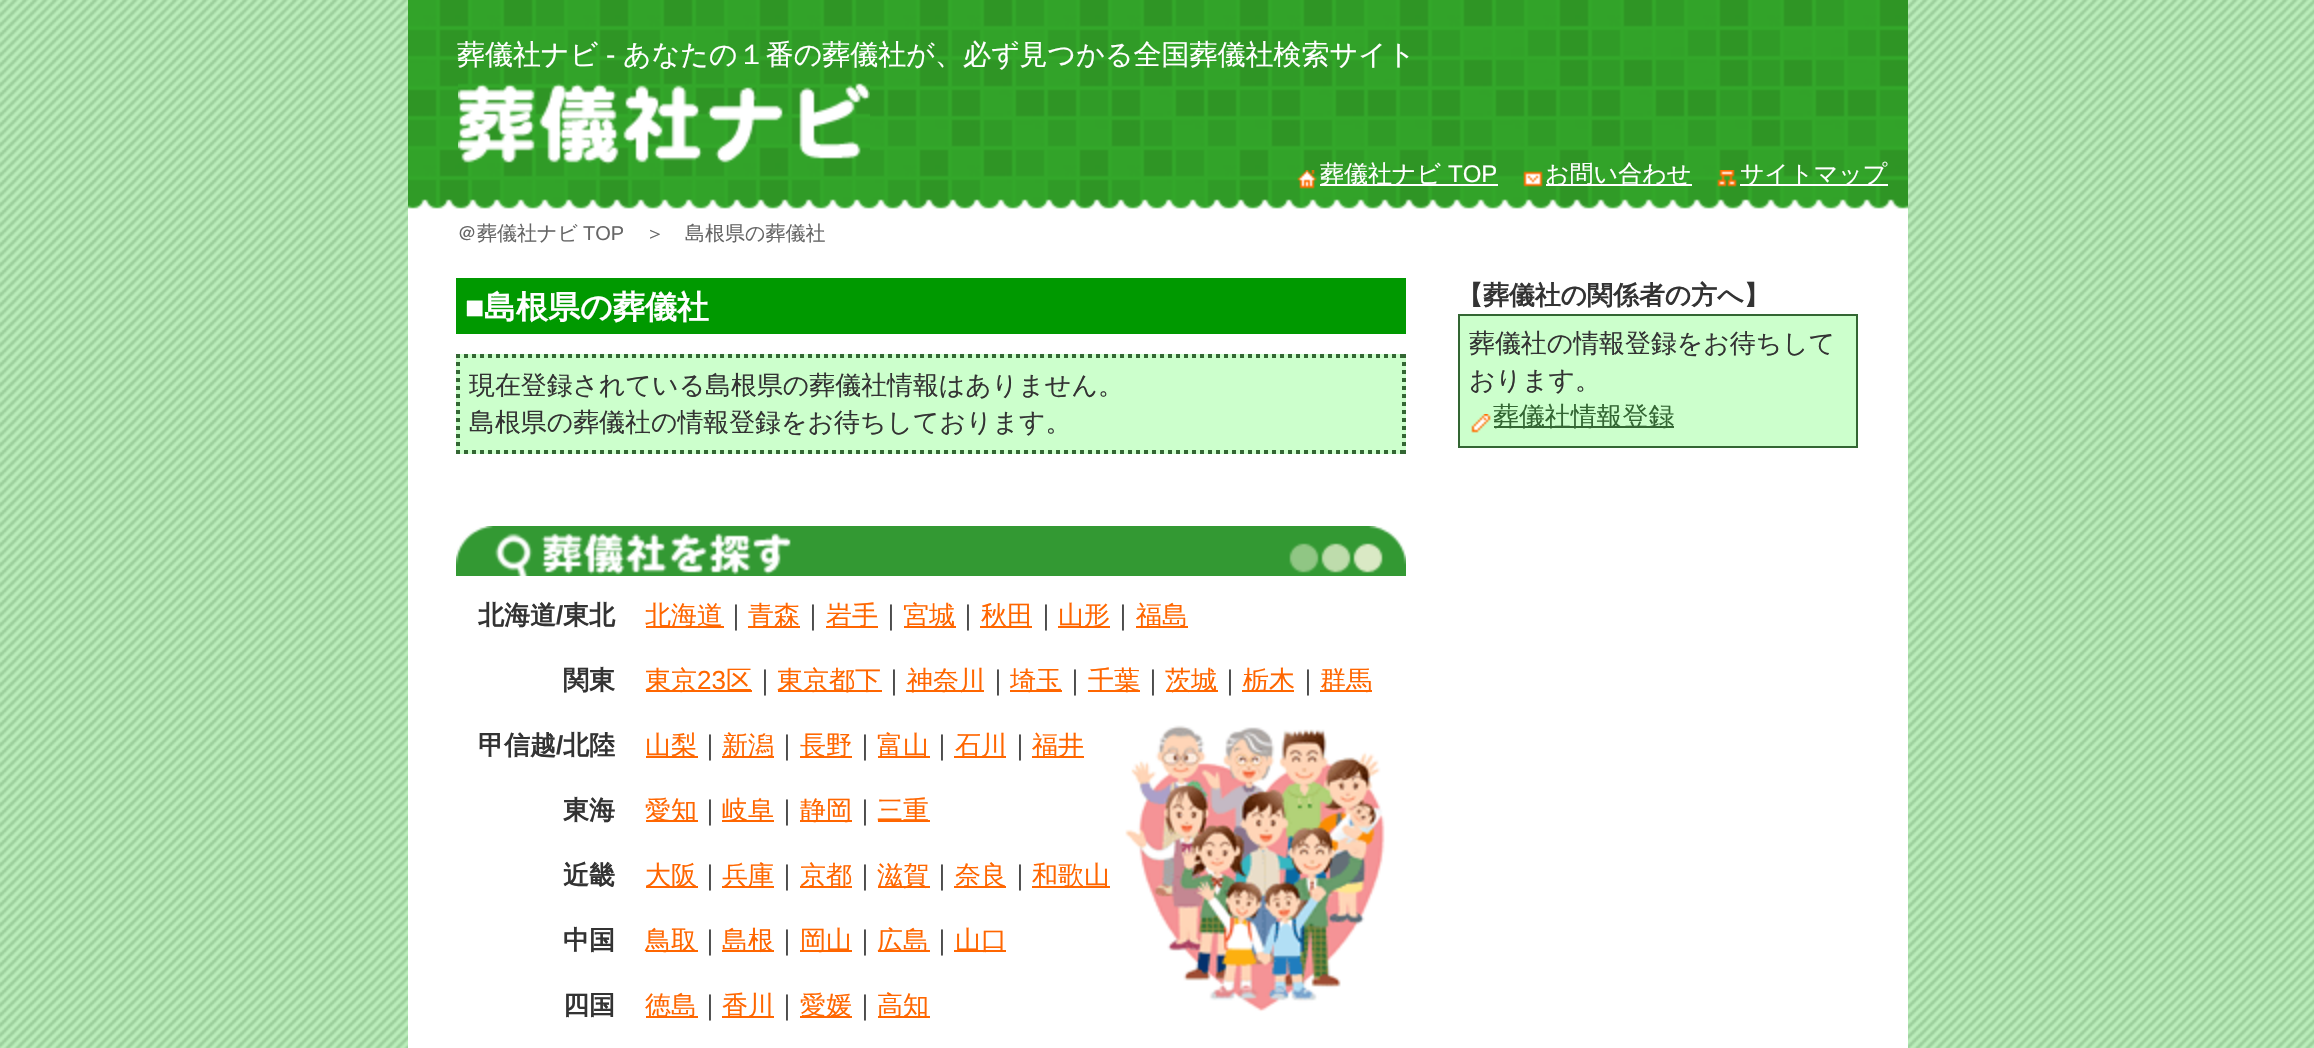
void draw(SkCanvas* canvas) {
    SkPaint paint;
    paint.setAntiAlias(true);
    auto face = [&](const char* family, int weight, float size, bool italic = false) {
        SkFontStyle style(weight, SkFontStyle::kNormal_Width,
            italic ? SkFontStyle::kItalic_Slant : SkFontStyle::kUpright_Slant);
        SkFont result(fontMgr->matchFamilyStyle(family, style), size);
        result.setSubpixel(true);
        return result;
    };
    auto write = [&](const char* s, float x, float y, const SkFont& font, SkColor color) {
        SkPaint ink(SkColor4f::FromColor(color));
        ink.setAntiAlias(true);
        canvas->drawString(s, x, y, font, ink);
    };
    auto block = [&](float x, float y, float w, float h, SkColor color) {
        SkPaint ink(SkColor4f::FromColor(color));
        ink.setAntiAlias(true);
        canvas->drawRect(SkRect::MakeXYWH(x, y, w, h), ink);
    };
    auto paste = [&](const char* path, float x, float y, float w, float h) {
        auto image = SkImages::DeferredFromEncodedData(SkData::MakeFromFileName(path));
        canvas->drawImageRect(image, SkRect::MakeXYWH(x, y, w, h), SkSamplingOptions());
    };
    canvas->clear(SK_ColorWHITE);
    paste("pic1.png", 0, 0, 2314, 1048);
    block(408, 209, 1500, 839, SK_ColorWHITE);
    paste("pic2.png", 408, 0, 1500, 209);
    auto kFont1 = face("WenQuanYi Zen Hei", 500, 28);
    write("葬儀社ナビ", 457, 64, kFont1, SK_ColorWHITE);
    auto kFont2 = face("Liberation Sans", 400, 28);
    write("-", 606, 64, kFont2, SK_ColorWHITE);
    write("あなたの１番の葬儀社が、必ず見つかる全国葬儀社検索サイト", 623, 64, kFont1, SK_ColorWHITE);
    paste("pic3.png", 458, 83, 412, 82);
    paste("pic4.png", 1297, 170, 20, 19);
    block(1320, 184, 178, 2, SK_ColorWHITE);
    auto kFont3 = face("WenQuanYi Zen Hei", 500, 24);
    write("葬儀社ナビ", 1320, 182, kFont3, SK_ColorWHITE);
    auto kFont4 = face("Liberation Sans", 400, 24);
    write("TOP", 1448, 182, kFont4, SK_ColorWHITE);
    paste("pic5.png", 1523, 171, 20, 16);
    block(1546, 184, 146, 2, SK_ColorWHITE);
    write("お問い合わせ", 1545, 182, kFont3, SK_ColorWHITE);
    paste("pic6.png", 1717, 170, 20, 17);
    block(1740, 184, 148, 2, SK_ColorWHITE);
    write("サイトマップ", 1740, 182, kFont3, SK_ColorWHITE);
    auto kFont5 = face("WenQuanYi Zen Hei", 500, 20);
    write("＠葬儀社ナビ", 457, 240, kFont5, SkColorSetRGB(102, 102, 102));
    auto kFont6 = face("Liberation Sans", 400, 20);
    write("TOP", 583, 240, kFont6, SkColorSetRGB(102, 102, 102));
    write("＞", 645, 240, kFont5, SkColorSetRGB(102, 102, 102));
    write("島根県の葬儀社", 685, 240, kFont5, SkColorSetRGB(102, 102, 102));
    block(456, 278, 950, 56, SkColorSetRGB(0, 153, 0));
    auto kFont7 = face("Liberation Sans", 700, 32);
    write("■", 465, 318, kFont7, SK_ColorWHITE);
    auto kFont8 = face("WenQuanYi Zen Hei", 700, 32);
    write("島根県の葬儀社", 484, 318, kFont8, SK_ColorWHITE);
    block(456, 354, 950, 100, SkColorSetRGB(204, 255, 204));
    paint.setStyle(SkPaint::kStroke_Style);
    paint.setStrokeWidth(4);
    paint.setColor(SkColorSetRGB(51, 102, 51));
    paint.setPathEffect(SkDashPathEffect::Make({{4, 4}}, 0));
    canvas->drawPath(SkPathBuilder().moveTo(456, 356).lineTo(1406, 356).detach(), paint);
    paint.setPathEffect(nullptr);
    paint.setPathEffect(SkDashPathEffect::Make({{4, 4}}, 0));
    canvas->drawPath(SkPathBuilder().moveTo(1404, 354).lineTo(1404, 454).detach(), paint);
    paint.setPathEffect(nullptr);
    paint.setPathEffect(SkDashPathEffect::Make({{4, 4}}, 0));
    canvas->drawPath(SkPathBuilder().moveTo(456, 452).lineTo(1406, 452).detach(), paint);
    paint.setPathEffect(nullptr);
    paint.setPathEffect(SkDashPathEffect::Make({{4, 4}}, 0));
    canvas->drawPath(SkPathBuilder().moveTo(458, 354).lineTo(458, 454).detach(), paint);
    paint.setPathEffect(nullptr);
    auto kFont9 = face("WenQuanYi Zen Hei", 500, 25.9f);
    write("現在登録されている島根県の葬儀社情報はありません。", 469, 394, kFont9, SkColorSetRGB(51, 51, 51));
    write("島根県の葬儀社の情報登録をお待ちしております。", 469, 431, kFont9, SkColorSetRGB(51, 51, 51));
    paste("pic7.png", 456, 526, 950, 50);
    paste("pic8.png", 1125, 725, 260, 287);
    auto kFont10 = face("WenQuanYi Zen Hei", 700, 26);
    write("北海道", 478, 624, kFont10, SkColorSetRGB(51, 51, 51));
    auto kFont11 = face("Liberation Sans", 700, 26);
    write("/", 556, 624, kFont11, SkColorSetRGB(51, 51, 51));
    write("東北", 563, 624, kFont10, SkColorSetRGB(51, 51, 51));
    block(646, 626, 78, 2, SkColorSetRGB(255, 102, 0));
    auto kFont12 = face("WenQuanYi Zen Hei", 500, 26);
    write("北海道", 645, 624, kFont12, SkColorSetRGB(255, 102, 0));
    write("｜", 723, 624, kFont12, SkColorSetRGB(51, 51, 51));
    block(748, 626, 52, 2, SkColorSetRGB(255, 102, 0));
    write("青森", 748, 624, kFont12, SkColorSetRGB(255, 102, 0));
    write("｜", 800, 624, kFont12, SkColorSetRGB(51, 51, 51));
    block(826, 626, 52, 2, SkColorSetRGB(255, 102, 0));
    write("岩手", 826, 624, kFont12, SkColorSetRGB(255, 102, 0));
    write("｜", 878, 624, kFont12, SkColorSetRGB(51, 51, 51));
    block(904, 626, 52, 2, SkColorSetRGB(255, 102, 0));
    write("宮城", 903, 624, kFont12, SkColorSetRGB(255, 102, 0));
    write("｜", 955, 624, kFont12, SkColorSetRGB(51, 51, 51));
    block(980, 626, 52, 2, SkColorSetRGB(255, 102, 0));
    write("秋田", 981, 624, kFont12, SkColorSetRGB(255, 102, 0));
    write("｜", 1033, 624, kFont12, SkColorSetRGB(51, 51, 51));
    block(1058, 626, 52, 2, SkColorSetRGB(255, 102, 0));
    write("山形", 1058, 624, kFont12, SkColorSetRGB(255, 102, 0));
    write("｜", 1110, 624, kFont12, SkColorSetRGB(51, 51, 51));
    block(1136, 626, 52, 2, SkColorSetRGB(255, 102, 0));
    write("福島", 1136, 624, kFont12, SkColorSetRGB(255, 102, 0));
    write("関東", 563, 689, kFont10, SkColorSetRGB(51, 51, 51));
    block(646, 690, 106, 2, SkColorSetRGB(255, 102, 0));
    write("東京", 645, 689, kFont12, SkColorSetRGB(255, 102, 0));
    auto kFont13 = face("Liberation Sans", 400, 26);
    write("23", 697, 689, kFont13, SkColorSetRGB(255, 102, 0));
    write("区", 726, 689, kFont12, SkColorSetRGB(255, 102, 0));
    write("｜", 752, 689, kFont12, SkColorSetRGB(51, 51, 51));
    block(778, 690, 104, 2, SkColorSetRGB(255, 102, 0));
    write("東京都下", 777, 689, kFont12, SkColorSetRGB(255, 102, 0));
    write("｜", 881, 689, kFont12, SkColorSetRGB(51, 51, 51));
    block(906, 690, 78, 2, SkColorSetRGB(255, 102, 0));
    write("神奈川", 907, 689, kFont12, SkColorSetRGB(255, 102, 0));
    write("｜", 985, 689, kFont12, SkColorSetRGB(51, 51, 51));
    block(1010, 690, 52, 2, SkColorSetRGB(255, 102, 0));
    write("埼玉", 1010, 689, kFont12, SkColorSetRGB(255, 102, 0));
    write("｜", 1062, 689, kFont12, SkColorSetRGB(51, 51, 51));
    block(1088, 690, 52, 2, SkColorSetRGB(255, 102, 0));
    write("千葉", 1088, 689, kFont12, SkColorSetRGB(255, 102, 0));
    write("｜", 1140, 689, kFont12, SkColorSetRGB(51, 51, 51));
    block(1166, 690, 52, 2, SkColorSetRGB(255, 102, 0));
    write("茨城", 1165, 689, kFont12, SkColorSetRGB(255, 102, 0));
    write("｜", 1217, 689, kFont12, SkColorSetRGB(51, 51, 51));
    block(1242, 690, 52, 2, SkColorSetRGB(255, 102, 0));
    write("栃木", 1243, 689, kFont12, SkColorSetRGB(255, 102, 0));
    write("｜", 1295, 689, kFont12, SkColorSetRGB(51, 51, 51));
    block(1320, 690, 52, 2, SkColorSetRGB(255, 102, 0));
    write("群馬", 1320, 689, kFont12, SkColorSetRGB(255, 102, 0));
    write("甲信越", 478, 754, kFont10, SkColorSetRGB(51, 51, 51));
    write("/", 556, 754, kFont11, SkColorSetRGB(51, 51, 51));
    write("北陸", 563, 754, kFont10, SkColorSetRGB(51, 51, 51));
    block(646, 756, 52, 2, SkColorSetRGB(255, 102, 0));
    write("山梨", 645, 754, kFont12, SkColorSetRGB(255, 102, 0));
    write("｜", 697, 754, kFont12, SkColorSetRGB(51, 51, 51));
    block(722, 756, 52, 2, SkColorSetRGB(255, 102, 0));
    write("新潟", 722, 754, kFont12, SkColorSetRGB(255, 102, 0));
    write("｜", 774, 754, kFont12, SkColorSetRGB(51, 51, 51));
    block(800, 756, 52, 2, SkColorSetRGB(255, 102, 0));
    write("長野", 800, 754, kFont12, SkColorSetRGB(255, 102, 0));
    write("｜", 852, 754, kFont12, SkColorSetRGB(51, 51, 51));
    block(878, 756, 52, 2, SkColorSetRGB(255, 102, 0));
    write("富山", 877, 754, kFont12, SkColorSetRGB(255, 102, 0));
    write("｜", 929, 754, kFont12, SkColorSetRGB(51, 51, 51));
    block(954, 756, 52, 2, SkColorSetRGB(255, 102, 0));
    write("石川", 955, 754, kFont12, SkColorSetRGB(255, 102, 0));
    write("｜", 1007, 754, kFont12, SkColorSetRGB(51, 51, 51));
    block(1032, 756, 52, 2, SkColorSetRGB(255, 102, 0));
    write("福井", 1032, 754, kFont12, SkColorSetRGB(255, 102, 0));
    write("東海", 563, 819, kFont10, SkColorSetRGB(51, 51, 51));
    block(646, 820, 52, 2, SkColorSetRGB(255, 102, 0));
    write("愛知", 645, 819, kFont12, SkColorSetRGB(255, 102, 0));
    write("｜", 697, 819, kFont12, SkColorSetRGB(51, 51, 51));
    block(722, 820, 52, 2, SkColorSetRGB(255, 102, 0));
    write("岐阜", 722, 819, kFont12, SkColorSetRGB(255, 102, 0));
    write("｜", 774, 819, kFont12, SkColorSetRGB(51, 51, 51));
    block(800, 820, 52, 2, SkColorSetRGB(255, 102, 0));
    write("静岡", 800, 819, kFont12, SkColorSetRGB(255, 102, 0));
    write("｜", 852, 819, kFont12, SkColorSetRGB(51, 51, 51));
    block(878, 820, 52, 2, SkColorSetRGB(255, 102, 0));
    write("三重", 877, 819, kFont12, SkColorSetRGB(255, 102, 0));
    write("近畿", 563, 884, kFont10, SkColorSetRGB(51, 51, 51));
    block(646, 886, 52, 2, SkColorSetRGB(255, 102, 0));
    write("大阪", 645, 884, kFont12, SkColorSetRGB(255, 102, 0));
    write("｜", 697, 884, kFont12, SkColorSetRGB(51, 51, 51));
    block(722, 886, 52, 2, SkColorSetRGB(255, 102, 0));
    write("兵庫", 722, 884, kFont12, SkColorSetRGB(255, 102, 0));
    write("｜", 774, 884, kFont12, SkColorSetRGB(51, 51, 51));
    block(800, 886, 52, 2, SkColorSetRGB(255, 102, 0));
    write("京都", 800, 884, kFont12, SkColorSetRGB(255, 102, 0));
    write("｜", 852, 884, kFont12, SkColorSetRGB(51, 51, 51));
    block(878, 886, 52, 2, SkColorSetRGB(255, 102, 0));
    write("滋賀", 877, 884, kFont12, SkColorSetRGB(255, 102, 0));
    write("｜", 929, 884, kFont12, SkColorSetRGB(51, 51, 51));
    block(954, 886, 52, 2, SkColorSetRGB(255, 102, 0));
    write("奈良", 955, 884, kFont12, SkColorSetRGB(255, 102, 0));
    write("｜", 1007, 884, kFont12, SkColorSetRGB(51, 51, 51));
    block(1032, 886, 78, 2, SkColorSetRGB(255, 102, 0));
    write("和歌山", 1032, 884, kFont12, SkColorSetRGB(255, 102, 0));
    write("中国", 563, 949, kFont10, SkColorSetRGB(51, 51, 51));
    block(646, 950, 52, 2, SkColorSetRGB(255, 102, 0));
    write("鳥取", 645, 949, kFont12, SkColorSetRGB(255, 102, 0));
    write("｜", 697, 949, kFont12, SkColorSetRGB(51, 51, 51));
    block(722, 950, 52, 2, SkColorSetRGB(255, 102, 0));
    write("島根", 722, 949, kFont12, SkColorSetRGB(255, 102, 0));
    write("｜", 774, 949, kFont12, SkColorSetRGB(51, 51, 51));
    block(800, 950, 52, 2, SkColorSetRGB(255, 102, 0));
    write("岡山", 800, 949, kFont12, SkColorSetRGB(255, 102, 0));
    write("｜", 852, 949, kFont12, SkColorSetRGB(51, 51, 51));
    block(878, 950, 52, 2, SkColorSetRGB(255, 102, 0));
    write("広島", 877, 949, kFont12, SkColorSetRGB(255, 102, 0));
    write("｜", 929, 949, kFont12, SkColorSetRGB(51, 51, 51));
    block(954, 950, 52, 2, SkColorSetRGB(255, 102, 0));
    write("山口", 955, 949, kFont12, SkColorSetRGB(255, 102, 0));
    write("四国", 563, 1014, kFont10, SkColorSetRGB(51, 51, 51));
    block(646, 1016, 52, 2, SkColorSetRGB(255, 102, 0));
    write("徳島", 645, 1014, kFont12, SkColorSetRGB(255, 102, 0));
    write("｜", 697, 1014, kFont12, SkColorSetRGB(51, 51, 51));
    block(722, 1016, 52, 2, SkColorSetRGB(255, 102, 0));
    write("香川", 722, 1014, kFont12, SkColorSetRGB(255, 102, 0));
    write("｜", 774, 1014, kFont12, SkColorSetRGB(51, 51, 51));
    block(800, 1016, 52, 2, SkColorSetRGB(255, 102, 0));
    write("愛媛", 800, 1014, kFont12, SkColorSetRGB(255, 102, 0));
    write("｜", 852, 1014, kFont12, SkColorSetRGB(51, 51, 51));
    block(878, 1016, 52, 2, SkColorSetRGB(255, 102, 0));
    write("高知", 877, 1014, kFont12, SkColorSetRGB(255, 102, 0));
    auto kFont14 = face("WenQuanYi Zen Hei", 700, 25.9f);
    write("【葬儀社の関係者の方へ】", 1457, 304, kFont14, SkColorSetRGB(51, 51, 51));
    paint.setStyle(SkPaint::kFill_Style);
    paint.setColor(SkColorSetRGB(204, 255, 204));
    canvas->drawRect(SkRect::MakeXYWH(1459, 315, 398, 132), paint);
    paint.setStyle(SkPaint::kStroke_Style);
    paint.setStrokeWidth(2);
    paint.setColor(SkColorSetRGB(51, 102, 51));
    canvas->drawRect(SkRect::MakeXYWH(1459, 315, 398, 132), paint);
    write("葬儀社の情報登録をお待ちして", 1469, 352, kFont9, SkColorSetRGB(51, 51, 51));
    write("おります。", 1469, 389, kFont9, SkColorSetRGB(51, 51, 51));
    paste("pic9.png", 1471, 414, 20, 19);
    block(1494, 426, 180, 2, SkColorSetRGB(51, 102, 51));
    write("葬儀社情報登録", 1493, 425, kFont9, SkColorSetRGB(51, 102, 51));
}
